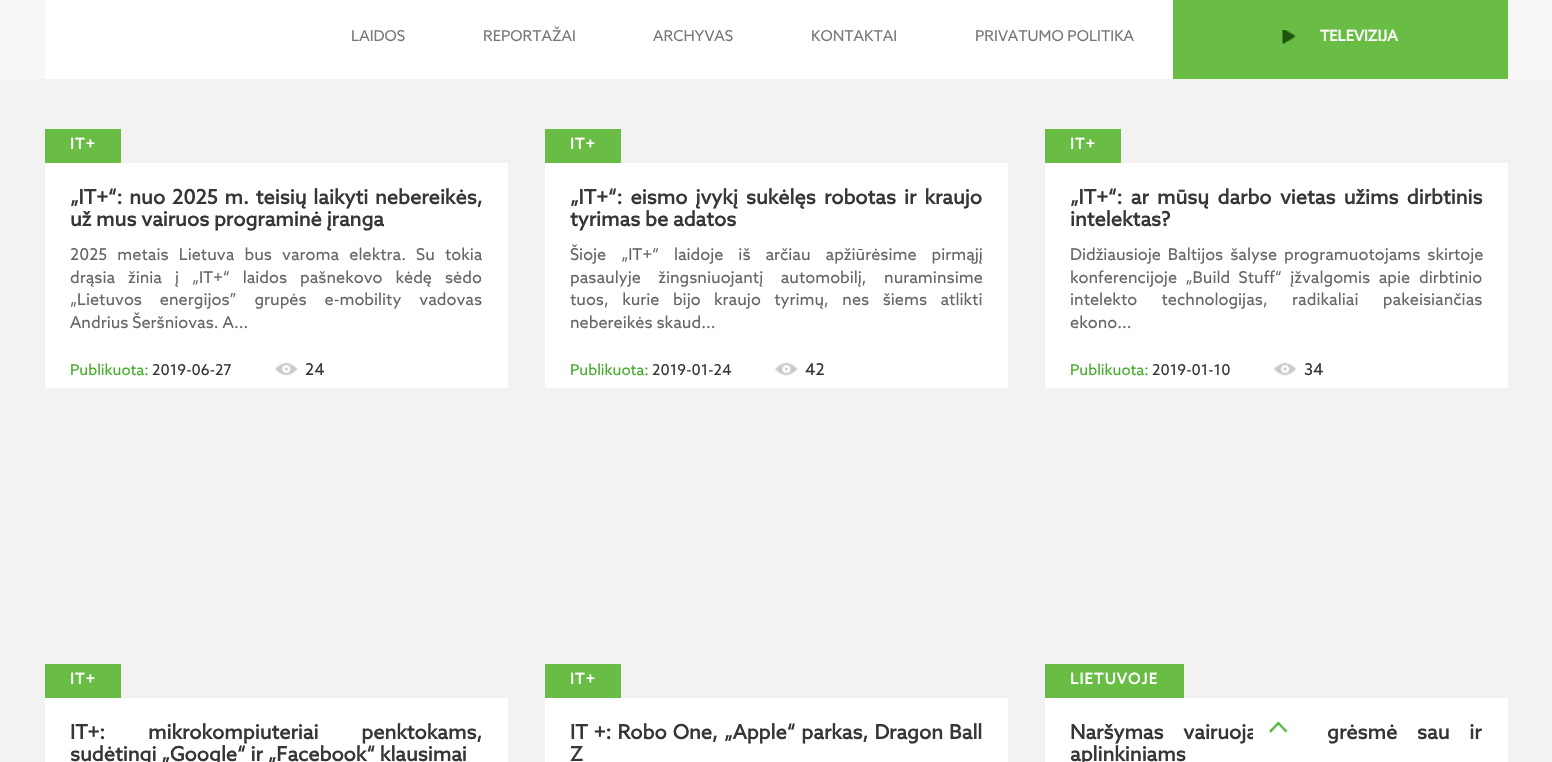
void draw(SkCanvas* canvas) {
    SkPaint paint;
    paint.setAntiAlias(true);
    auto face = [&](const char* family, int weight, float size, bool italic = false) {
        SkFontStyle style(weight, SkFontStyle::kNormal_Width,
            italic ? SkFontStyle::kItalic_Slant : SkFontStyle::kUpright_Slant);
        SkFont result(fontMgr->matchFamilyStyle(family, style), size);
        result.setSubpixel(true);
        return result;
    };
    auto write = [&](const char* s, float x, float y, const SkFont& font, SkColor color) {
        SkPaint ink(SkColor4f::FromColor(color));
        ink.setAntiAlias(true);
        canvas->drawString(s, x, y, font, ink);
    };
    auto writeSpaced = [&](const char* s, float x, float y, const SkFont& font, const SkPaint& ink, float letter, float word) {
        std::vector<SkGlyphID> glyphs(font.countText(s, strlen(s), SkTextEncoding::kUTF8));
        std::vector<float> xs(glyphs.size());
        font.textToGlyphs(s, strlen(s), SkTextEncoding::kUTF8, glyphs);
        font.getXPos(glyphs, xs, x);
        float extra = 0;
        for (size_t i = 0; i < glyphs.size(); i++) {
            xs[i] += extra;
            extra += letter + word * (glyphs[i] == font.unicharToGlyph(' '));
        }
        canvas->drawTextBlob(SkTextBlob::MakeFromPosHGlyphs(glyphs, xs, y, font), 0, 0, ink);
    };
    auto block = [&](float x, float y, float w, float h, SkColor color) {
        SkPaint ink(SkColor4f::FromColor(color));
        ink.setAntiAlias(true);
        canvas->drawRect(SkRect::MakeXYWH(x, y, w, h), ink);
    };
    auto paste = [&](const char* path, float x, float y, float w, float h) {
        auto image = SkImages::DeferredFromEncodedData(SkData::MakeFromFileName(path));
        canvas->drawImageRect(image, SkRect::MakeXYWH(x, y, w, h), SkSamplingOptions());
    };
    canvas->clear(SkColorSetRGB(242, 242, 242));
    block(0, 0, 1552, 79, SkColorSetRGB(247, 247, 247));
    block(45, 0, 1128, 79, SK_ColorWHITE);
    auto kFont1 = face("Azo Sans", 400, 15);
    write("LAIDOS", 351, 41, kFont1, SkColorSetRGB(119, 119, 119));
    write("REPORTAŽAI", 483, 41, kFont1, SkColorSetRGB(119, 119, 119));
    write("ARCHYVAS", 653, 41, kFont1, SkColorSetRGB(119, 119, 119));
    write("KONTAKTAI", 811, 41, kFont1, SkColorSetRGB(119, 119, 119));
    write("PRIVATUMO POLITIKA", 975, 41, kFont1, SkColorSetRGB(119, 119, 119));
    block(1173, 0, 335, 79, SkColorSetRGB(105, 189, 69));
    paste("pic1.png", 1282, 30, 14, 14);
    auto kFont2 = face("Azo Sans", 700, 15);
    write("TELEVIZIJA", 1320, 41, kFont2, SK_ColorWHITE);
    block(45, 129, 76, 34, SkColorSetRGB(105, 189, 69));
    paint.setColor(SK_ColorWHITE);
    writeSpaced("IT+", 70, 149, kFont2, paint, 1.25f, 0);
    block(45, 163, 463, 225, SK_ColorWHITE);
    auto kFont3 = face("Azo Sans", 700, 20);
    paint.setColor(SkColorSetRGB(54, 54, 54));
    writeSpaced("„IT+“: nuo 2025 m. teisių laikyti nebereikės,", 70, 204, kFont3, paint, 0, 2);
    write("už mus vairuos programinė įranga", 70, 226, kFont3, SkColorSetRGB(54, 54, 54));
    auto kFont4 = face("Azo Sans", 400, 16.25f);
    paint.setColor(SkColorSetRGB(102, 102, 102));
    writeSpaced("2025 metais Lietuva bus varoma elektra. Su tokia", 70, 260, kFont4, paint, 0, 6.25f);
    writeSpaced("drąsia žinia į „IT+“ laidos pašnekovo kėdę sėdo", 70, 283, kFont4, paint, 0, 9);
    writeSpaced("„Lietuvos energijos” grupės e-mobility vadovas", 70, 305, kFont4, paint, 0, 14);
    write("Andrius Šeršniovas. A...", 70, 328, kFont4, SkColorSetRGB(102, 102, 102));
    write("Publikuota:", 70, 375, kFont1, SkColorSetRGB(65, 172, 39));
    write("2019-06-27", 152, 375, kFont1, SkColorSetRGB(54, 54, 54));
    paste("pic2.png", 275, 362, 23, 14);
    write("24", 305, 375, kFont4, SkColorSetRGB(54, 54, 54));
    block(545, 129, 76, 34, SkColorSetRGB(105, 189, 69));
    paint.setColor(SK_ColorWHITE);
    writeSpaced("IT+", 570, 149, kFont2, paint, 1.25f, 0);
    block(545, 163, 463, 225, SK_ColorWHITE);
    paint.setColor(SkColorSetRGB(54, 54, 54));
    writeSpaced("„IT+“: eismo įvykį sukėlęs robotas ir kraujo", 570, 204, kFont3, paint, 0, 3.25f);
    write("tyrimas be adatos", 570, 226, kFont3, SkColorSetRGB(54, 54, 54));
    paint.setColor(SkColorSetRGB(102, 102, 102));
    writeSpaced("Šioje „IT+“ laidoje iš arčiau apžiūrėsime pirmąjį", 570, 260, kFont4, paint, 0, 11);
    writeSpaced("pasaulyje žingsniuojantį automobilį, nuraminsime", 570, 283, kFont4, paint, 0, 13.5f);
    writeSpaced("tuos, kurie bijo kraujo tyrimų, nes šiems atlikti", 570, 305, kFont4, paint, 0, 9.5f);
    write("nebereikės skaud...", 570, 328, kFont4, SkColorSetRGB(102, 102, 102));
    write("Publikuota:", 570, 375, kFont1, SkColorSetRGB(65, 172, 39));
    write("2019-01-24", 652, 375, kFont1, SkColorSetRGB(54, 54, 54));
    paste("pic2.png", 775, 362, 23, 14);
    write("42", 805, 375, kFont4, SkColorSetRGB(54, 54, 54));
    block(1045, 129, 76, 34, SkColorSetRGB(105, 189, 69));
    paint.setColor(SK_ColorWHITE);
    writeSpaced("IT+", 1070, 149, kFont2, paint, 1.25f, 0);
    block(1045, 163, 463, 225, SK_ColorWHITE);
    paint.setColor(SkColorSetRGB(54, 54, 54));
    writeSpaced("„IT+“: ar mūsų darbo vietas užims dirbtinis", 1070, 204, kFont3, paint, 0, 3.5f);
    write("intelektas?", 1070, 226, kFont3, SkColorSetRGB(54, 54, 54));
    paint.setColor(SkColorSetRGB(102, 102, 102));
    writeSpaced("Didžiausioje Baltijos šalyse programuotojams skirtoje", 1070, 260, kFont4, paint, 0, 3);
    writeSpaced("konferencijoje „Build Stuff“ įžvalgomis apie", 1070, 283, kFont4, paint, 0, 4.5f);
    write("dirbtinio", 1419, 283, kFont4, SkColorSetRGB(102, 102, 102));
    writeSpaced("intelekto technologijas, radikaliai pakeisiančias", 1070, 305, kFont4, paint, 0, 20.5f);
    write("ekono...", 1070, 328, kFont4, SkColorSetRGB(102, 102, 102));
    write("Publikuota:", 1070, 375, kFont1, SkColorSetRGB(65, 172, 39));
    write("2019-01-10", 1152, 375, kFont1, SkColorSetRGB(54, 54, 54));
    paste("pic3.png", 1273, 362, 24, 14);
    write("34", 1304, 375, kFont4, SkColorSetRGB(54, 54, 54));
    block(45, 664, 76, 34, SkColorSetRGB(105, 189, 69));
    paint.setColor(SK_ColorWHITE);
    writeSpaced("IT+", 70, 684, kFont2, paint, 1.25f, 0);
    block(45, 698, 463, 64, SK_ColorWHITE);
    paint.setColor(SkColorSetRGB(54, 54, 54));
    writeSpaced("IT+: mikrokompiuteriai penktokams,", 70, 739, kFont3, paint, 0, 38);
    write("sudėtingi „Google“ ir „Facebook“ klausimai", 70, 761, kFont3, SkColorSetRGB(54, 54, 54));
    block(545, 664, 76, 34, SkColorSetRGB(105, 189, 69));
    paint.setColor(SK_ColorWHITE);
    writeSpaced("IT+", 570, 684, kFont2, paint, 1.25f, 0);
    block(545, 698, 463, 64, SK_ColorWHITE);
    paint.setColor(SkColorSetRGB(54, 54, 54));
    writeSpaced("IT +: Robo One, „Apple“ parkas, Dragon Ball", 570, 739, kFont3, paint, 0, 1.25f);
    write("Z", 570, 761, kFont3, SkColorSetRGB(54, 54, 54));
    block(1045, 664, 139, 34, SkColorSetRGB(105, 189, 69));
    paint.setColor(SK_ColorWHITE);
    writeSpaced("LIETUVOJE", 1070, 684, kFont2, paint, 1.25f, 0);
    block(1045, 698, 463, 64, SK_ColorWHITE);
    paint.setColor(SkColorSetRGB(54, 54, 54));
    writeSpaced("Naršymas vairuoja", 1070, 739, kFont3, paint, 0, 15);
    writeSpaced("grėsmė sau ir", 1327, 739, kFont3, paint, 0, 15);
    write("aplinkiniams", 1070, 761, kFont3, SkColorSetRGB(54, 54, 54));
    block(1253, 729, 4, 11, SK_ColorWHITE);
    paste("pic4.png", 1268, 721, 20, 13);
}
